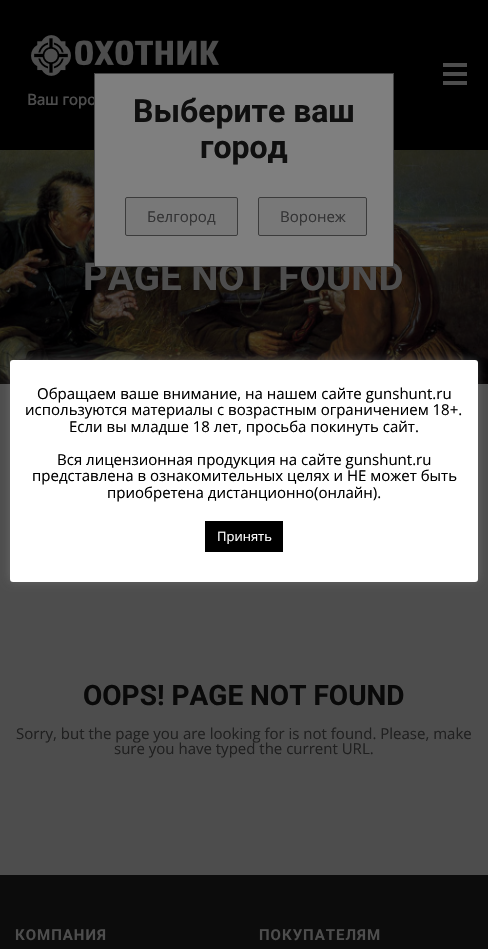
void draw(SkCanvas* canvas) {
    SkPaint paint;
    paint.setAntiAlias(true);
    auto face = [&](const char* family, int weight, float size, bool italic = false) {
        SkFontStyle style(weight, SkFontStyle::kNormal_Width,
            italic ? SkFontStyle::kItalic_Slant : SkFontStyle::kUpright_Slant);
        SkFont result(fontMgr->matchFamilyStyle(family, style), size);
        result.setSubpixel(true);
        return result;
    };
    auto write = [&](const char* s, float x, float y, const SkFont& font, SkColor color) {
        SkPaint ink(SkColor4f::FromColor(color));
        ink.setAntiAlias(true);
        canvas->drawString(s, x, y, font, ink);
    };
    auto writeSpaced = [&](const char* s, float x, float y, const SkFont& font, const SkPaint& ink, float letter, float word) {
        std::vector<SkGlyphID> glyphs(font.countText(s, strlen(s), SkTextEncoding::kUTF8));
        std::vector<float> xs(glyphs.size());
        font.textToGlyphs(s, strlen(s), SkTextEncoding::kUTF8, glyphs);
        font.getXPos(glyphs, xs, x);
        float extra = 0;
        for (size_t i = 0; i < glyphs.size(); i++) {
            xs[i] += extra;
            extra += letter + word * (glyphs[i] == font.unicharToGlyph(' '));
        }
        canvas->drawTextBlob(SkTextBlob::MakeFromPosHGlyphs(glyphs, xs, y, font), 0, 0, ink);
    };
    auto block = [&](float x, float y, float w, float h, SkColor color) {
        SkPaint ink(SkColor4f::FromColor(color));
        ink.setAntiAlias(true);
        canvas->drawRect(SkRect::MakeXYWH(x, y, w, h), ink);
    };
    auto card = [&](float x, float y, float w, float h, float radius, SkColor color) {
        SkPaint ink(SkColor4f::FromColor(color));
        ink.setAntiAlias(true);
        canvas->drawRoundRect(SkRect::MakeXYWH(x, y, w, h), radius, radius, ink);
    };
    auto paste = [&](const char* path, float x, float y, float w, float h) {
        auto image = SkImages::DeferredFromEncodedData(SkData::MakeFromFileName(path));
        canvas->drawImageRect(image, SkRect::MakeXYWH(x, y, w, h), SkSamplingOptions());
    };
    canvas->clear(SkColorSetRGB(77, 77, 77));
    block(0, 0, 488, 150, SK_ColorBLACK);
    block(443, 63, 24, 4, SkColorSetRGB(77, 77, 77));
    block(443, 72, 24, 4, SkColorSetRGB(77, 77, 77));
    block(443, 81, 24, 4, SkColorSetRGB(77, 77, 77));
    paste("pic1.png", 31, 35, 188, 41);
    auto kFont1 = face("Open Sans", 700, 15);
    write("Ваш горо", 27, 105, kFont1, SkColorSetRGB(77, 77, 77));
    paste("pic2.png", 0, 150, 488, 234);
    auto kFont2 = face("Roboto", 700, 38.5f);
    write("PAGE NOT FOUND", 83, 290, kFont2, SkColorSetRGB(77, 77, 77));
    paint.setColor(SkColorSetRGB(127, 127, 127));
    canvas->drawRect(SkRect::MakeXYWH(94.5f, 73.5f, 299, 193), paint);
    paint.setStyle(SkPaint::kStroke_Style);
    paint.setStrokeWidth(1);
    paint.setColor(SkColorSetRGB(68, 68, 68));
    canvas->drawRect(SkRect::MakeXYWH(94.5f, 73.5f, 299, 193), paint);
    auto kFont3 = face("Roboto", 700, 32);
    write("Выберите ваш", 133, 122, kFont3, SkColorSetRGB(15, 15, 15));
    write("город", 200, 158, kFont3, SkColorSetRGB(15, 15, 15));
    paint.setStyle(SkPaint::kFill_Style);
    paint.setColor(SkColorSetRGB(120, 120, 120));
    canvas->drawRoundRect(SkRect::MakeXYWH(125.5f, 197.5f, 112, 38), 1.5f, 1.5f, paint);
    paint.setStyle(SkPaint::kStroke_Style);
    paint.setColor(SkColorSetRGB(59, 59, 59));
    canvas->drawRoundRect(SkRect::MakeXYWH(125.5f, 197.5f, 112, 38), 1.5f, 1.5f, paint);
    auto kFont4 = face("Open Sans", 400, 15);
    write("Белгород", 147, 222, kFont4, SkColorSetRGB(51, 51, 52));
    paint.setStyle(SkPaint::kFill_Style);
    paint.setColor(SkColorSetRGB(120, 120, 120));
    canvas->drawRoundRect(SkRect::MakeXYWH(258.5f, 197.5f, 108, 38), 1.5f, 1.5f, paint);
    paint.setStyle(SkPaint::kStroke_Style);
    paint.setColor(SkColorSetRGB(59, 59, 59));
    canvas->drawRoundRect(SkRect::MakeXYWH(258.5f, 197.5f, 108, 38), 1.5f, 1.5f, paint);
    write("Воронеж", 280, 222, kFont4, SkColorSetRGB(51, 51, 52));
    auto kFont5 = face("Roboto", 700, 28);
    write("OOPS! PAGE NOT FOUND", 83, 705, kFont5, SkColorSetRGB(9, 9, 9));
    write("Sorry, but the page you are looking for is not found. Please, make", 16, 739, kFont4, SkColorSetRGB(31, 31, 31));
    write("sure you have typed the current URL.", 114, 754, kFont4, SkColorSetRGB(31, 31, 31));
    block(0, 875, 488, 74, SkColorSetRGB(12, 12, 12));
    auto kFont6 = face("Roboto", 700, 15);
    paint.setStyle(SkPaint::kFill_Style);
    paint.setColor(SkColorSetRGB(77, 77, 77));
    writeSpaced("КОМПАНИЯ", 15, 940, kFont6, paint, 1, 0);
    writeSpaced("ПОКУПАТЕЛЯМ", 259, 940, kFont6, paint, 1, 0);
    paint.setColor(SkColorSetARGB(77, 172, 171, 171));
    paint.setMaskFilter(SkMaskFilter::MakeBlur(kNormal_SkBlurStyle, 5));
    canvas->drawRoundRect(SkRect::MakeXYWH(10, 359, 468, 222), 3, 3, paint);
    paint.setMaskFilter(nullptr);
    card(10, 360, 468, 222, 3, SK_ColorWHITE);
    write("Обращаем ваше внимание, на нашем сайте gunshunt.ru", 37, 399, kFont4, SK_ColorBLACK);
    write("используются материалы с возрастным ограничением 18+.", 25, 415, kFont4, SK_ColorBLACK);
    write("Если вы младше 18 лет, просьба покинуть сайт.", 69, 432, kFont4, SK_ColorBLACK);
    write("Вся лицензионная продукция на сайте gunshunt.ru", 57, 465, kFont4, SK_ColorBLACK);
    write("представлена в ознакомительных целях и НЕ может быть", 32, 481, kFont4, SK_ColorBLACK);
    write("приобретена дистанционно(онлайн).", 107, 498, kFont4, SK_ColorBLACK);
    block(205, 521, 78, 31, SK_ColorBLACK);
    auto kFont7 = face("Open Sans", 400, 13);
    write("Принять", 217, 541, kFont7, SK_ColorWHITE);
}
